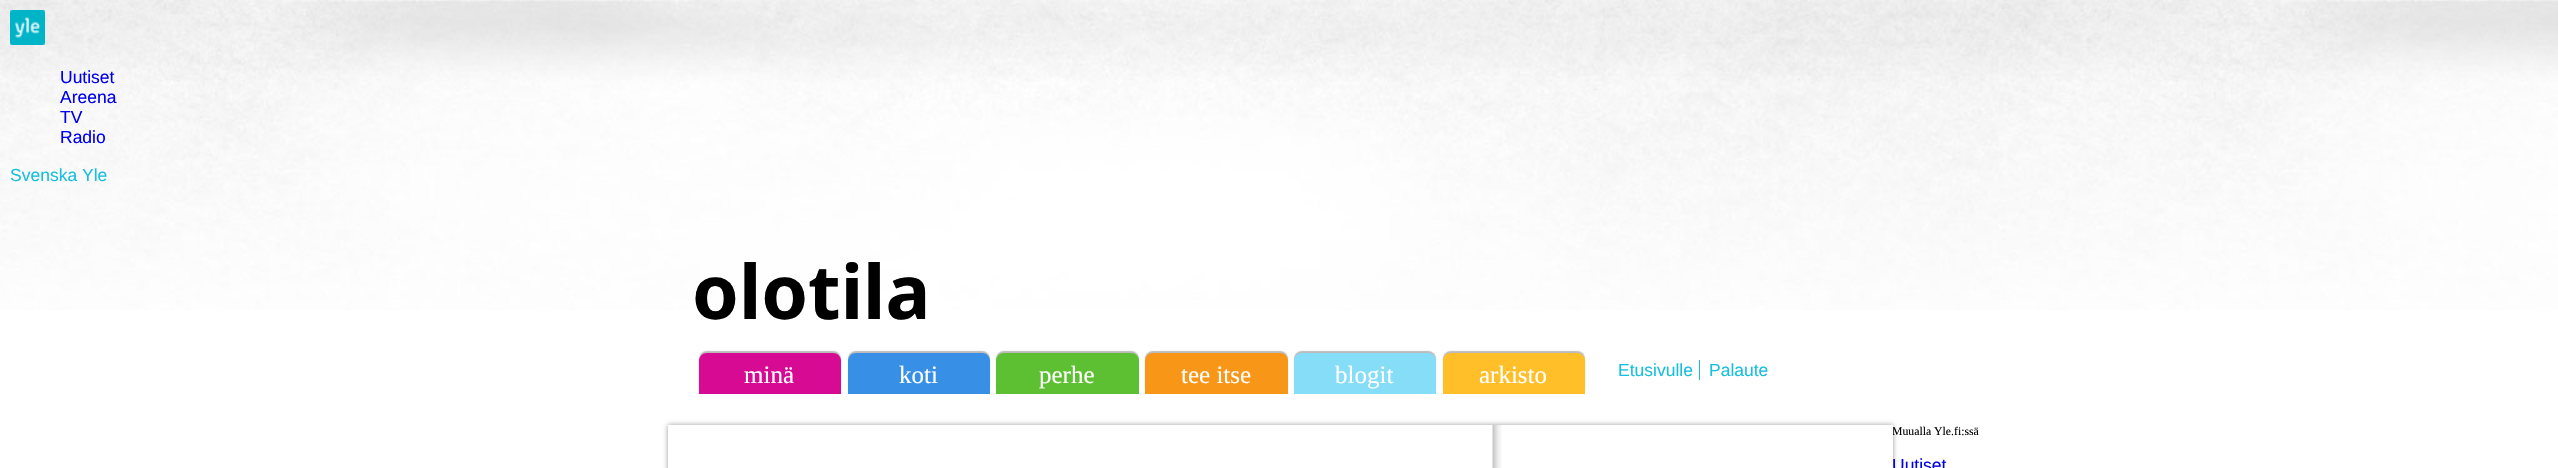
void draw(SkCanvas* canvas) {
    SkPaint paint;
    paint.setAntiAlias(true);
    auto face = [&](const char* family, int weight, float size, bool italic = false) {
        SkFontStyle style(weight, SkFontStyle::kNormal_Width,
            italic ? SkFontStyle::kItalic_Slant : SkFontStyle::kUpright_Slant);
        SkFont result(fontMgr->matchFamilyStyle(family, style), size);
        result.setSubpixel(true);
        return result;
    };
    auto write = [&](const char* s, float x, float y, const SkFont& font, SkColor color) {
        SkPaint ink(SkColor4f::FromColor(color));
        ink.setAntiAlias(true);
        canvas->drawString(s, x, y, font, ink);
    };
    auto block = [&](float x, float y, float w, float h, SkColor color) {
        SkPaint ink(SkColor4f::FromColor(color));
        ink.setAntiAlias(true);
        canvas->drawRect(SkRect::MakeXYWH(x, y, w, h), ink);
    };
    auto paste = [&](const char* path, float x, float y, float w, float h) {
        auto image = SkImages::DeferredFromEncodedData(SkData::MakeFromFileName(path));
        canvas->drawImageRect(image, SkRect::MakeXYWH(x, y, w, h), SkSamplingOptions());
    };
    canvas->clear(SK_ColorWHITE);
    paste("pic1.png", 0, 0, 2558, 310);
    paste("pic2.png", 10, 10, 35, 35);
    auto kFont1 = face("Liberation Sans", 400, 17.5f);
    write("Uutiset", 60, 83, kFont1, SkColorSetRGB(0, 0, 238));
    write("Areena", 60, 103, kFont1, SkColorSetRGB(0, 0, 238));
    write("TV", 60, 123, kFont1, SkColorSetRGB(0, 0, 238));
    write("Radio", 60, 143, kFont1, SkColorSetRGB(0, 0, 238));
    write("Svenska Yle", 10, 181, kFont1, SkColorSetRGB(24, 191, 222));
    auto kFont2 = face("Noto Sans", 700, 75);
    write("olotila", 692, 319, kFont2, SK_ColorBLACK);
    paint.setColor(SkColorSetRGB(187, 187, 187));
    paint.setMaskFilter(SkMaskFilter::MakeBlur(kNormal_SkBlurStyle, 0.5f));
    canvas->drawRoundRect(SkRect::MakeXYWH(699, 351, 142, 42), 8, 8, paint);
    paint.setMaskFilter(nullptr);
    paint.setColor(SkColorSetRGB(215, 10, 148));
    canvas->drawPath(SkPathBuilder().moveTo(707, 353).lineTo(833, 353).cubicTo(837.5f, 353, 841, 356.5f, 841, 361).lineTo(841, 394).lineTo(699, 394).lineTo(699, 361).cubicTo(699, 356.5f, 702.5f, 353, 707, 353).close().detach(), paint);
    auto kFont3 = face("Liberation Serif", 400, 25);
    write("minä", 744, 383, kFont3, SK_ColorWHITE);
    paint.setColor(SkColorSetRGB(187, 187, 187));
    paint.setMaskFilter(SkMaskFilter::MakeBlur(kNormal_SkBlurStyle, 0.5f));
    canvas->drawRoundRect(SkRect::MakeXYWH(848, 351, 142, 42), 8, 8, paint);
    paint.setMaskFilter(nullptr);
    paint.setColor(SkColorSetRGB(55, 144, 230));
    canvas->drawPath(SkPathBuilder().moveTo(856, 353).lineTo(982, 353).cubicTo(986.5f, 353, 990, 356.5f, 990, 361).lineTo(990, 394).lineTo(848, 394).lineTo(848, 361).cubicTo(848, 356.5f, 851.5f, 353, 856, 353).close().detach(), paint);
    write("koti", 899, 383, kFont3, SK_ColorWHITE);
    paint.setColor(SkColorSetRGB(187, 187, 187));
    paint.setMaskFilter(SkMaskFilter::MakeBlur(kNormal_SkBlurStyle, 0.5f));
    canvas->drawRoundRect(SkRect::MakeXYWH(996, 351, 143, 42), 8, 8, paint);
    paint.setMaskFilter(nullptr);
    paint.setColor(SkColorSetRGB(92, 192, 50));
    canvas->drawPath(SkPathBuilder().moveTo(1004, 353).lineTo(1131, 353).cubicTo(1135.5f, 353, 1139, 356.5f, 1139, 361).lineTo(1139, 394).lineTo(996, 394).lineTo(996, 361).cubicTo(996, 356.5f, 999.5f, 353, 1004, 353).close().detach(), paint);
    write("perhe", 1039, 383, kFont3, SK_ColorWHITE);
    paint.setColor(SkColorSetRGB(187, 187, 187));
    paint.setMaskFilter(SkMaskFilter::MakeBlur(kNormal_SkBlurStyle, 0.5f));
    canvas->drawRoundRect(SkRect::MakeXYWH(1145, 351, 143, 42), 8, 8, paint);
    paint.setMaskFilter(nullptr);
    paint.setColor(SkColorSetRGB(248, 150, 24));
    canvas->drawPath(SkPathBuilder().moveTo(1153, 353).lineTo(1280, 353).cubicTo(1284.5f, 353, 1288, 356.5f, 1288, 361).lineTo(1288, 394).lineTo(1145, 394).lineTo(1145, 361).cubicTo(1145, 356.5f, 1148.5f, 353, 1153, 353).close().detach(), paint);
    write("tee itse", 1181, 383, kFont3, SK_ColorWHITE);
    paint.setColor(SkColorSetRGB(187, 187, 187));
    paint.setMaskFilter(SkMaskFilter::MakeBlur(kNormal_SkBlurStyle, 0.5f));
    canvas->drawRoundRect(SkRect::MakeXYWH(1294, 351, 142, 42), 8, 8, paint);
    paint.setMaskFilter(nullptr);
    paint.setColor(SkColorSetRGB(133, 221, 247));
    canvas->drawPath(SkPathBuilder().moveTo(1302, 353).lineTo(1428, 353).cubicTo(1432.5f, 353, 1436, 356.5f, 1436, 361).lineTo(1436, 394).lineTo(1294, 394).lineTo(1294, 361).cubicTo(1294, 356.5f, 1297.5f, 353, 1302, 353).close().detach(), paint);
    write("blogit", 1335, 383, kFont3, SK_ColorWHITE);
    paint.setColor(SkColorSetRGB(187, 187, 187));
    paint.setMaskFilter(SkMaskFilter::MakeBlur(kNormal_SkBlurStyle, 0.5f));
    canvas->drawRoundRect(SkRect::MakeXYWH(1443, 351, 142, 42), 8, 8, paint);
    paint.setMaskFilter(nullptr);
    paint.setColor(SkColorSetRGB(255, 191, 40));
    canvas->drawPath(SkPathBuilder().moveTo(1451, 353).lineTo(1577, 353).cubicTo(1581.5f, 353, 1585, 356.5f, 1585, 361).lineTo(1585, 394).lineTo(1443, 394).lineTo(1443, 361).cubicTo(1443, 356.5f, 1446.5f, 353, 1451, 353).close().detach(), paint);
    write("arkisto", 1479, 383, kFont3, SK_ColorWHITE);
    write("Etusivulle", 1618, 376, kFont1, SkColorSetRGB(24, 191, 222));
    block(1699, 360, 1, 20, SkColorSetRGB(24, 191, 222));
    write("Palaute", 1709, 376, kFont1, SkColorSetRGB(24, 191, 222));
    paint.setColor(SkColorSetRGB(153, 153, 153));
    paint.setMaskFilter(SkMaskFilter::MakeBlur(kNormal_SkBlurStyle, 2.5f));
    canvas->drawRect(SkRect::MakeXYWH(668, 425, 1225, 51), paint);
    paint.setMaskFilter(nullptr);
    auto kFont4 = face("Liberation Serif", 400, 11.75f);
    write("Muualla Yle.fi:ssä", 1892, 435, kFont4, SK_ColorBLACK);
    block(668, 425, 1225, 43, SK_ColorWHITE);
    paste("pic3.png", 1492, 425, 10, 43);
    write("Uutiset", 1892, 471, kFont1, SkColorSetRGB(0, 0, 238));
}
